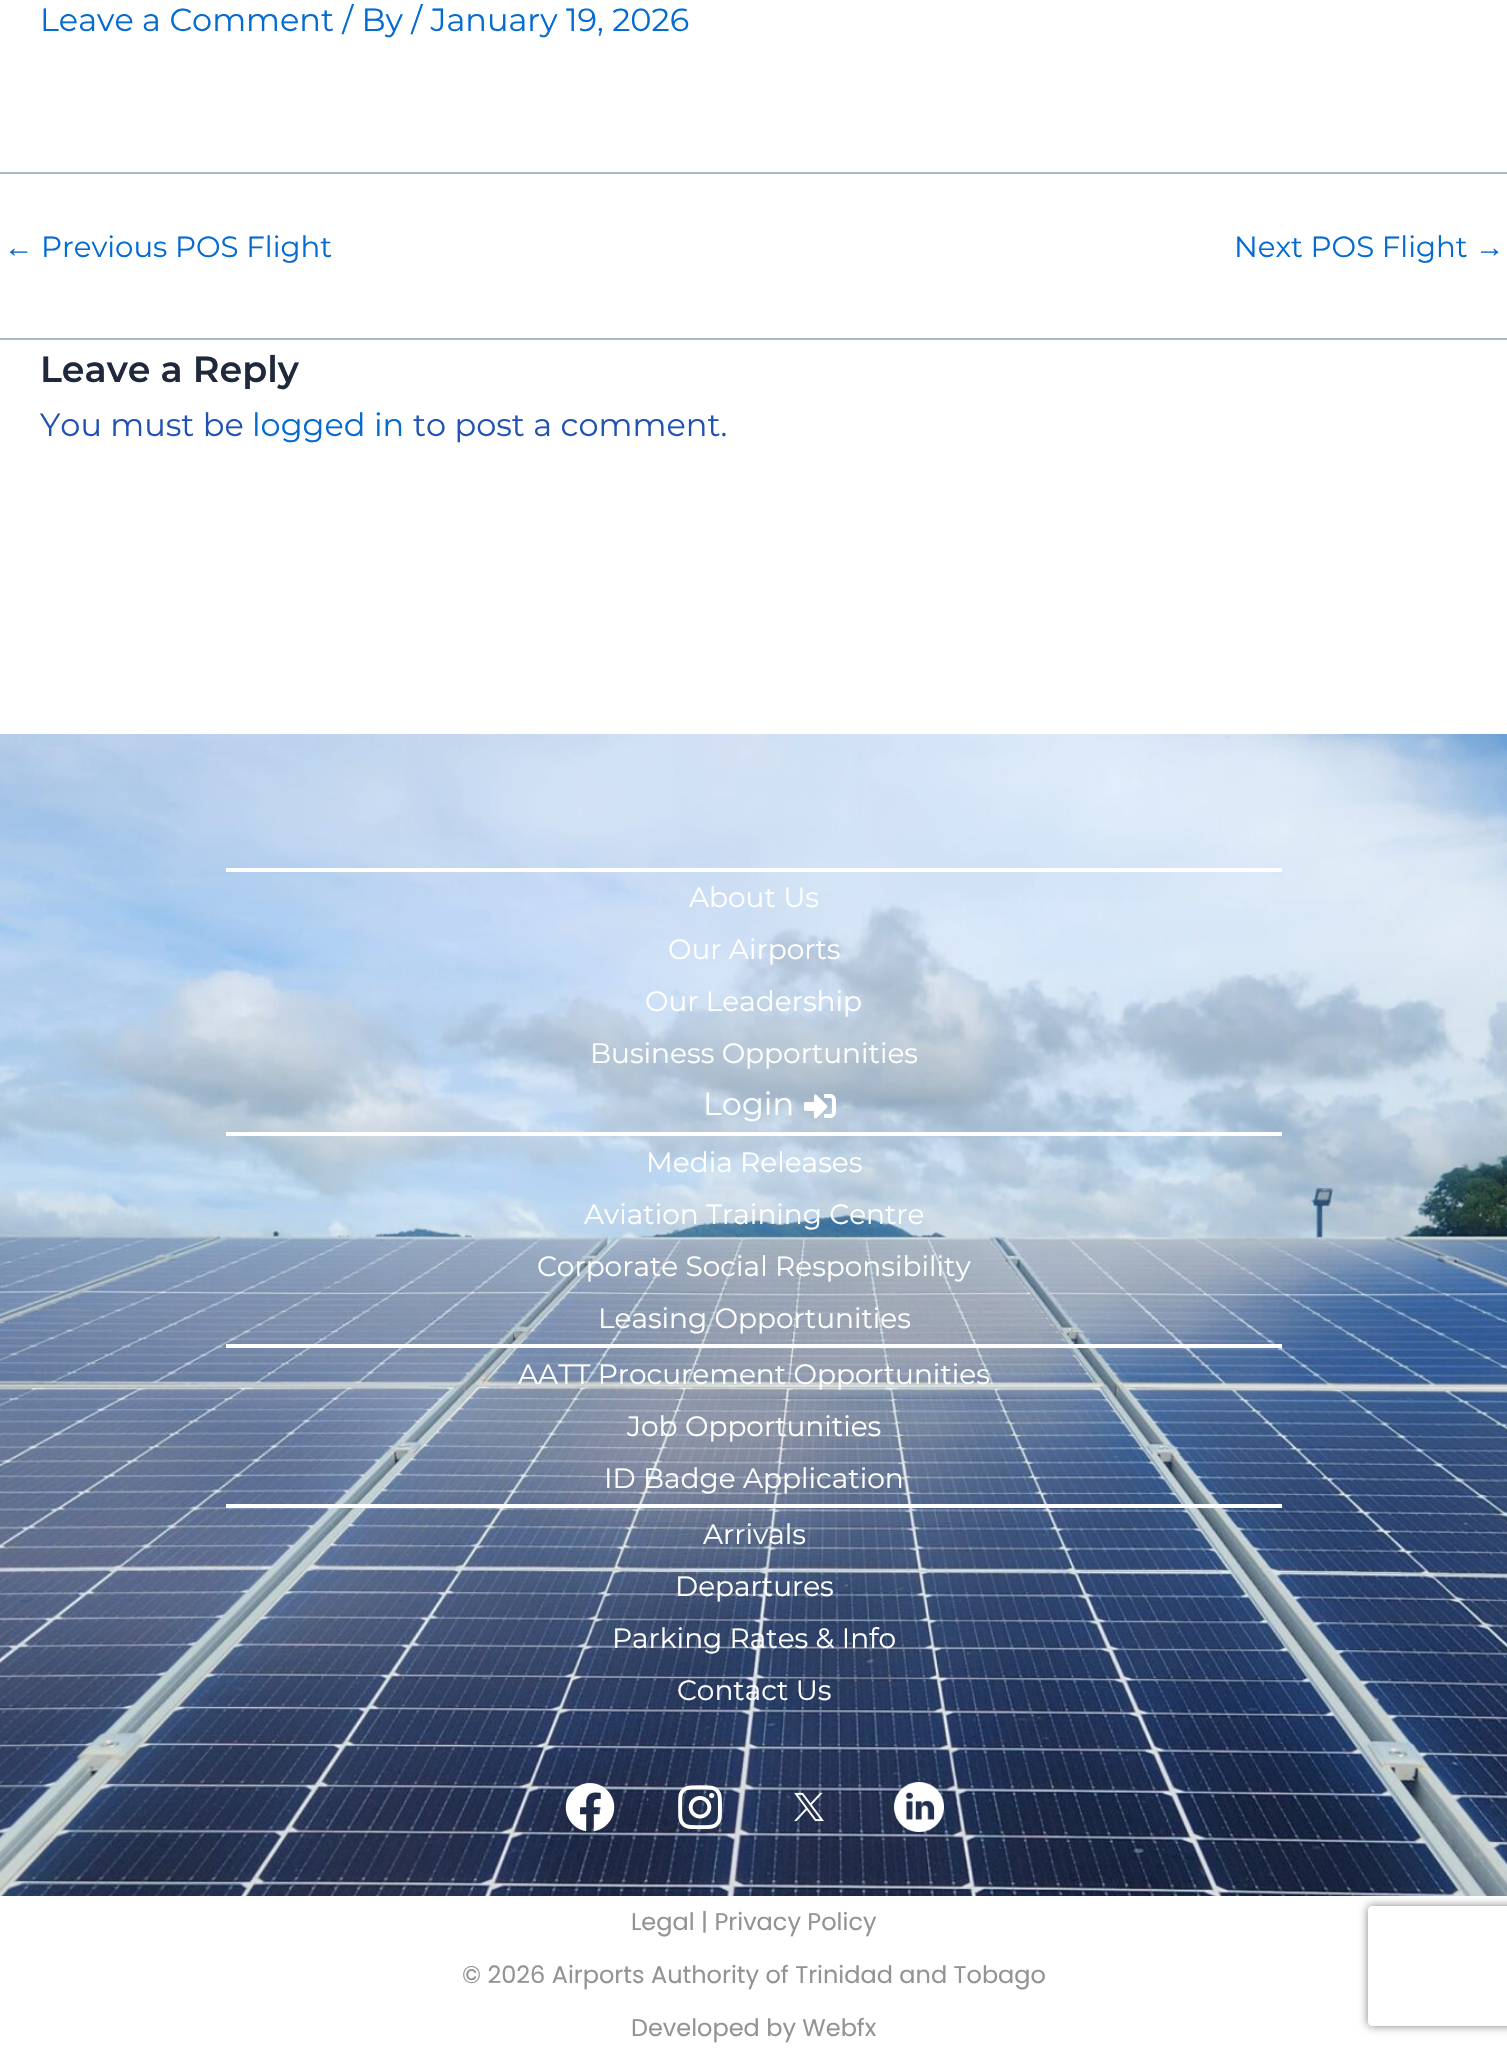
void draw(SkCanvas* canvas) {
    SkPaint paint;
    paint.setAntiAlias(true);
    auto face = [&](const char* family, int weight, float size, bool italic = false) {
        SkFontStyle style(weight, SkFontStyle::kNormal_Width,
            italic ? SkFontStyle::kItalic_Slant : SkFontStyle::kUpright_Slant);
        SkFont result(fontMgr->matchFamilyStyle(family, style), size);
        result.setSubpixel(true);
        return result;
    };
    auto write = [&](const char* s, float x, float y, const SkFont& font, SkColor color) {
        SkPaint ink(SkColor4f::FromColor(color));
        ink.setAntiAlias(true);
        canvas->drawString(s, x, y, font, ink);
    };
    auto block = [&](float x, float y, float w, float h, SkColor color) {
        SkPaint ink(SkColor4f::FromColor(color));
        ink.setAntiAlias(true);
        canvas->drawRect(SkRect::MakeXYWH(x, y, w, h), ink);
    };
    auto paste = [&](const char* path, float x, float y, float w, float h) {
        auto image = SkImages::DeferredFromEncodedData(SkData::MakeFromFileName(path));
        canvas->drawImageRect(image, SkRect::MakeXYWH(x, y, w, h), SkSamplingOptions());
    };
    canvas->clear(SK_ColorWHITE);
    auto kFont1 = face("Montserrat", 400, 32);
    write("Leave a Comment / By / January 19, 2026", 40, 31, kFont1, SkColorSetRGB(4, 107, 210));
    block(0, 172, 1507, 2, SkColorSetRGB(173, 182, 190));
    auto kFont2 = face("Liberation Sans", 400, 29.25f);
    write("←", 4, 257, kFont2, SkColorSetRGB(4, 107, 210));
    auto kFont3 = face("Montserrat", 400, 29.25f);
    write("Previous POS Flight", 41, 257, kFont3, SkColorSetRGB(4, 107, 210));
    write("Next POS Flight", 1234, 257, kFont3, SkColorSetRGB(4, 107, 210));
    write("→", 1475, 257, kFont2, SkColorSetRGB(4, 107, 210));
    block(0, 338, 1507, 2, SkColorSetRGB(173, 182, 190));
    auto kFont4 = face("Montserrat", 600, 36.5f);
    write("Leave a Reply", 40, 382, kFont4, SkColorSetRGB(30, 41, 59));
    write("You must be", 40, 436, kFont1, SkColorSetRGB(31, 82, 177));
    write("logged in", 252, 436, kFont1, SkColorSetRGB(4, 107, 210));
    write("to post a comment.", 413, 436, kFont1, SkColorSetRGB(31, 82, 177));
    paste("pic1.png", 0, 734, 1507, 1162);
    block(226, 868, 1056, 4, SK_ColorWHITE);
    auto kFont5 = face("Montserrat", 400, 28);
    write("About Us", 689, 907, kFont5, SK_ColorWHITE);
    write("Our Airports", 668, 959, kFont5, SK_ColorWHITE);
    write("Our Leadership", 645, 1011, kFont5, SK_ColorWHITE);
    write("Business Opportunities", 590, 1063, kFont5, SK_ColorWHITE);
    write("Login", 703, 1115, kFont1, SK_ColorWHITE);
    paste("pic2.png", 804, 1094, 32, 25);
    block(226, 1132, 1056, 4, SK_ColorWHITE);
    write("Media Releases", 646, 1172, kFont5, SK_ColorWHITE);
    write("Aviation Training Centre", 584, 1224, kFont5, SK_ColorWHITE);
    write("Corporate Social Responsibility", 537, 1276, kFont5, SK_ColorWHITE);
    write("Leasing Opportunities", 598, 1328, kFont5, SK_ColorWHITE);
    block(226, 1344, 1056, 4, SK_ColorWHITE);
    write("AATT Procurement Opportunities", 518, 1384, kFont5, SK_ColorWHITE);
    write("Job Opportunities", 627, 1436, kFont5, SK_ColorWHITE);
    write("ID Badge Application", 604, 1488, kFont5, SK_ColorWHITE);
    block(226, 1504, 1056, 4, SK_ColorWHITE);
    write("Arrivals", 703, 1544, kFont5, SK_ColorWHITE);
    write("Departures", 675, 1596, kFont5, SK_ColorWHITE);
    write("Parking Rates & Info", 612, 1648, kFont5, SK_ColorWHITE);
    write("Contact Us", 677, 1700, kFont5, SK_ColorWHITE);
    paste("pic3.png", 565, 1783, 50, 49);
    paste("pic4.png", 678, 1785, 44, 45);
    paste("pic5.png", 794, 1792, 30, 30);
    paste("pic6.png", 894, 1782, 50, 50);
    auto kFont6 = face("Poppins", 400, 24);
    write("Legal | Privacy Policy", 631, 1930, kFont6, SkColorSetRGB(147, 147, 147));
    write("© 2026 Airports Authority of Trinidad and Tobago", 462, 1983, kFont6, SkColorSetRGB(147, 147, 147));
    write("Developed by Webfx", 631, 2036, kFont6, SkColorSetRGB(147, 147, 147));
    canvas->save();
    canvas->clipPath(SkPathBuilder(SkPathFillType::kEvenOdd).moveTo(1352, 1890).lineTo(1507, 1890).lineTo(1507, 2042).lineTo(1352, 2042).close().moveTo(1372, 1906).lineTo(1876, 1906).cubicTo(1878, 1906, 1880, 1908, 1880, 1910).lineTo(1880, 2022).cubicTo(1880, 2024, 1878, 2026, 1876, 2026).lineTo(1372, 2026).cubicTo(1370, 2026, 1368, 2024, 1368, 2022).lineTo(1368, 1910).cubicTo(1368, 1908, 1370, 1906, 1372, 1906).close().detach(), true);
    paint.setColor(SkColorSetRGB(128, 128, 128));
    paint.setMaskFilter(SkMaskFilter::MakeBlur(kNormal_SkBlurStyle, 5));
    canvas->drawRoundRect(SkRect::MakeXYWH(1368, 1906, 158, 120), 4, 4, paint);
    paint.setMaskFilter(nullptr);
    canvas->restore();
}
